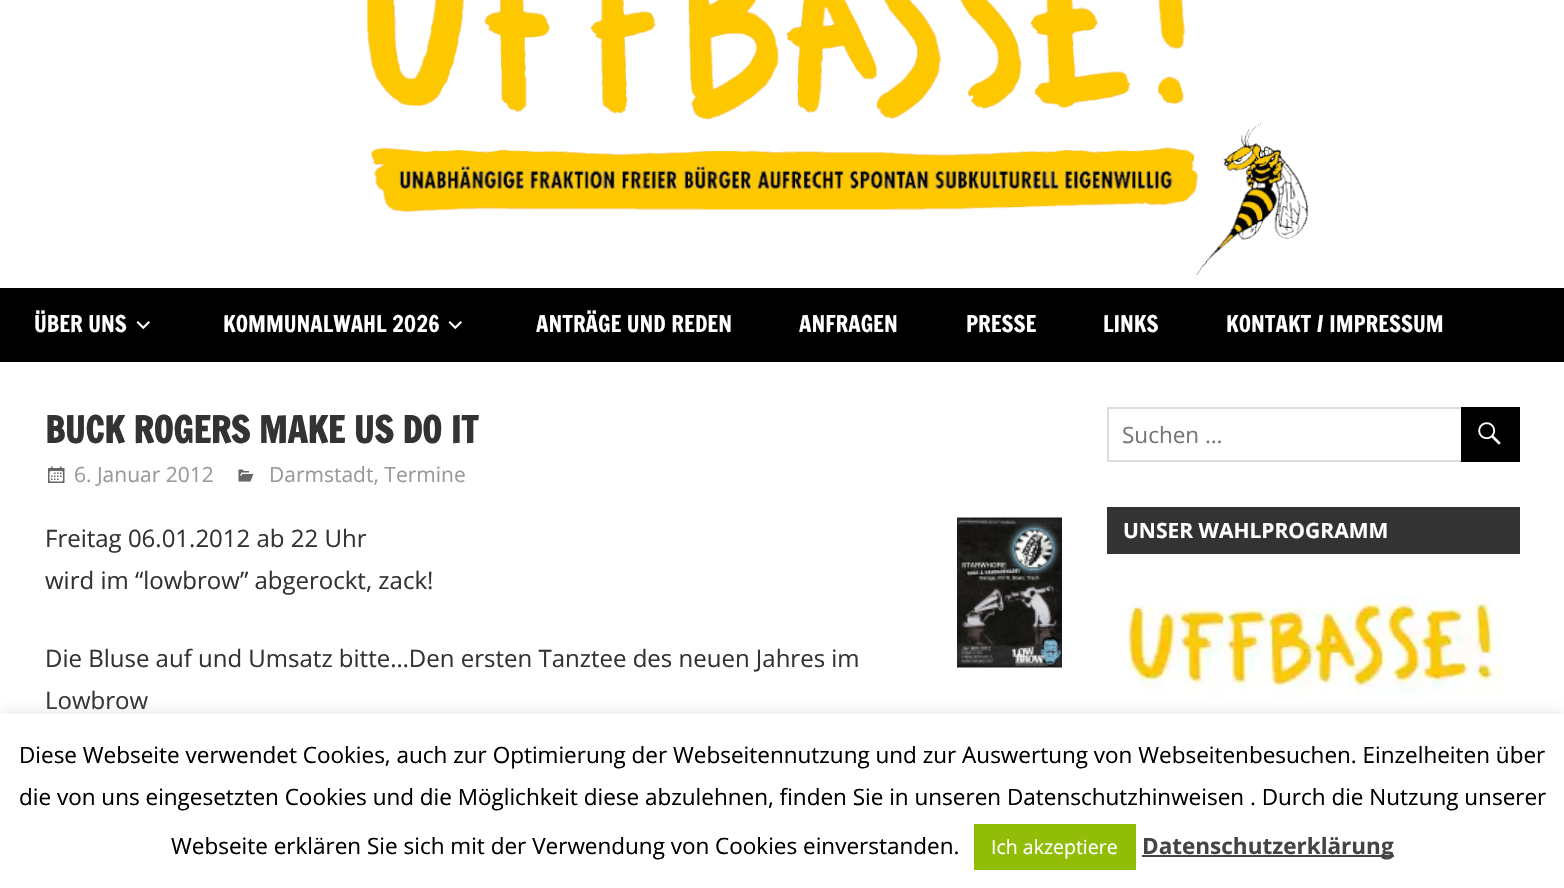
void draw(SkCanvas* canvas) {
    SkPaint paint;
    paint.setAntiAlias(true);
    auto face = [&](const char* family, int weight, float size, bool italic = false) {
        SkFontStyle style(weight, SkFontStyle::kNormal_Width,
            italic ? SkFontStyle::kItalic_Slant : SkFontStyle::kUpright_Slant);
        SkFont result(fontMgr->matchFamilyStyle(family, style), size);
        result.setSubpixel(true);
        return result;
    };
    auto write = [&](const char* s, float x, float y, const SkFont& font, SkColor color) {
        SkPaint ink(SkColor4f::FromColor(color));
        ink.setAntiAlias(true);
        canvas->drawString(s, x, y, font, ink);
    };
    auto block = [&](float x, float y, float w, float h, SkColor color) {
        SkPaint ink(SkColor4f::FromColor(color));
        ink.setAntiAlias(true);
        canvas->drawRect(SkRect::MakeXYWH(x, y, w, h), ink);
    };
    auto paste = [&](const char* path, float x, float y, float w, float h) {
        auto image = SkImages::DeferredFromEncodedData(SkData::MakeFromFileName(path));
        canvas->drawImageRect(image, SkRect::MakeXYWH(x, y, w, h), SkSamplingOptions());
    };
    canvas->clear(SK_ColorWHITE);
    paste("pic1.png", 367, 0, 942, 276);
    block(0, 288, 1564, 74, SK_ColorBLACK);
    auto kFont1 = face("Francois One", 400, 22.5f);
    write("ÜBER UNS", 34, 332, kFont1, SK_ColorWHITE);
    paste("pic2.png", 136, 321, 14, 9);
    write("KOMMUNALWAHL 2026", 223, 332, kFont1, SK_ColorWHITE);
    paste("pic2.png", 448, 321, 14, 9);
    write("ANTRÄGE UND REDEN", 536, 332, kFont1, SK_ColorWHITE);
    write("ANFRAGEN", 799, 332, kFont1, SK_ColorWHITE);
    write("PRESSE", 966, 332, kFont1, SK_ColorWHITE);
    write("LINKS", 1103, 332, kFont1, SK_ColorWHITE);
    write("KONTAKT / IMPRESSUM", 1226, 332, kFont1, SK_ColorWHITE);
    auto kFont2 = face("Francois One", 700, 36);
    write("BUCK ROGERS MAKE US DO IT", 45, 443, kFont2, SkColorSetRGB(51, 51, 51));
    paste("pic3.png", 48, 466, 17, 17);
    auto kFont3 = face("Open Sans", 400, 21);
    write("6. Januar 2012", 74, 482, kFont3, SkColorSetRGB(153, 153, 153));
    paste("pic4.png", 238, 469, 16, 13);
    write("Darmstadt, Termine", 269, 482, kFont3, SkColorSetRGB(153, 153, 153));
    auto kFont4 = face("Open Sans", 400, 24);
    write("Freitag 06.01.2012 ab 22 Uhr", 45, 547, kFont4, SkColorSetRGB(51, 51, 51));
    paste("pic5.png", 957, 517, 105, 151);
    write("wird im “lowbrow” abgerockt, zack!", 45, 589, kFont4, SkColorSetRGB(51, 51, 51));
    write("Die Bluse auf und Umsatz bitte…Den ersten Tanztee des neuen Jahres im", 45, 667, kFont4, SkColorSetRGB(51, 51, 51));
    write("Lowbrow", 45, 709, kFont4, SkColorSetRGB(51, 51, 51));
    paint.setStyle(SkPaint::kStroke_Style);
    paint.setStrokeWidth(2);
    paint.setColor(SkColorSetRGB(221, 221, 221));
    canvas->drawRect(SkRect::MakeXYWH(1108, 408, 411, 53), paint);
    auto kFont5 = face("Open Sans", 400, 22.5f);
    write("Suchen …", 1122, 443, kFont5, SkColorSetRGB(117, 117, 117));
    block(1461, 407, 59, 55, SK_ColorBLACK);
    paste("pic6.png", 1478, 422, 23, 23);
    block(1107, 507, 413, 47, SkColorSetRGB(51, 51, 51));
    auto kFont6 = face("Open Sans", 700, 21);
    write("UNSER WAHLPROGRAMM", 1123, 538, kFont6, SK_ColorWHITE);
    paste("pic7.png", 1127, 596, 378, 118);
    paint.setStyle(SkPaint::kFill_Style);
    paint.setColor(SkColorSetARGB(77, 172, 171, 171));
    paint.setMaskFilter(SkMaskFilter::MakeBlur(kNormal_SkBlurStyle, 7.5f));
    canvas->drawRect(SkRect::MakeXYWH(0, 713, 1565, 174), paint);
    paint.setMaskFilter(nullptr);
    block(0, 714, 1564, 174, SK_ColorWHITE);
    write("Diese Webseite verwendet Cookies, auch zur Optimierung der Webseitennutzung und zur Auswertung von Webseitenbesuchen. Einzelheiten über", 19, 763, kFont5, SK_ColorBLACK);
    write("die von uns eingesetzten Cookies und die Möglichkeit diese abzulehnen, finden Sie in unseren Datenschutzhinweisen . Durch die Nutzung unserer", 19, 805, kFont5, SK_ColorBLACK);
    write("Webseite erklären Sie sich mit der Verwendung von Cookies einverstanden.", 171, 854, kFont5, SK_ColorBLACK);
    block(974, 824, 162, 46, SkColorSetRGB(145, 189, 9));
    auto kFont7 = face("Open Sans", 400, 19.5f);
    write("Ich akzeptiere", 991, 854, kFont7, SK_ColorWHITE);
    block(1142, 855, 252, 2, SkColorSetRGB(68, 68, 68));
    auto kFont8 = face("Open Sans", 700, 22.5f);
    write("Datenschutzerklärung", 1142, 854, kFont8, SkColorSetRGB(68, 68, 68));
}
